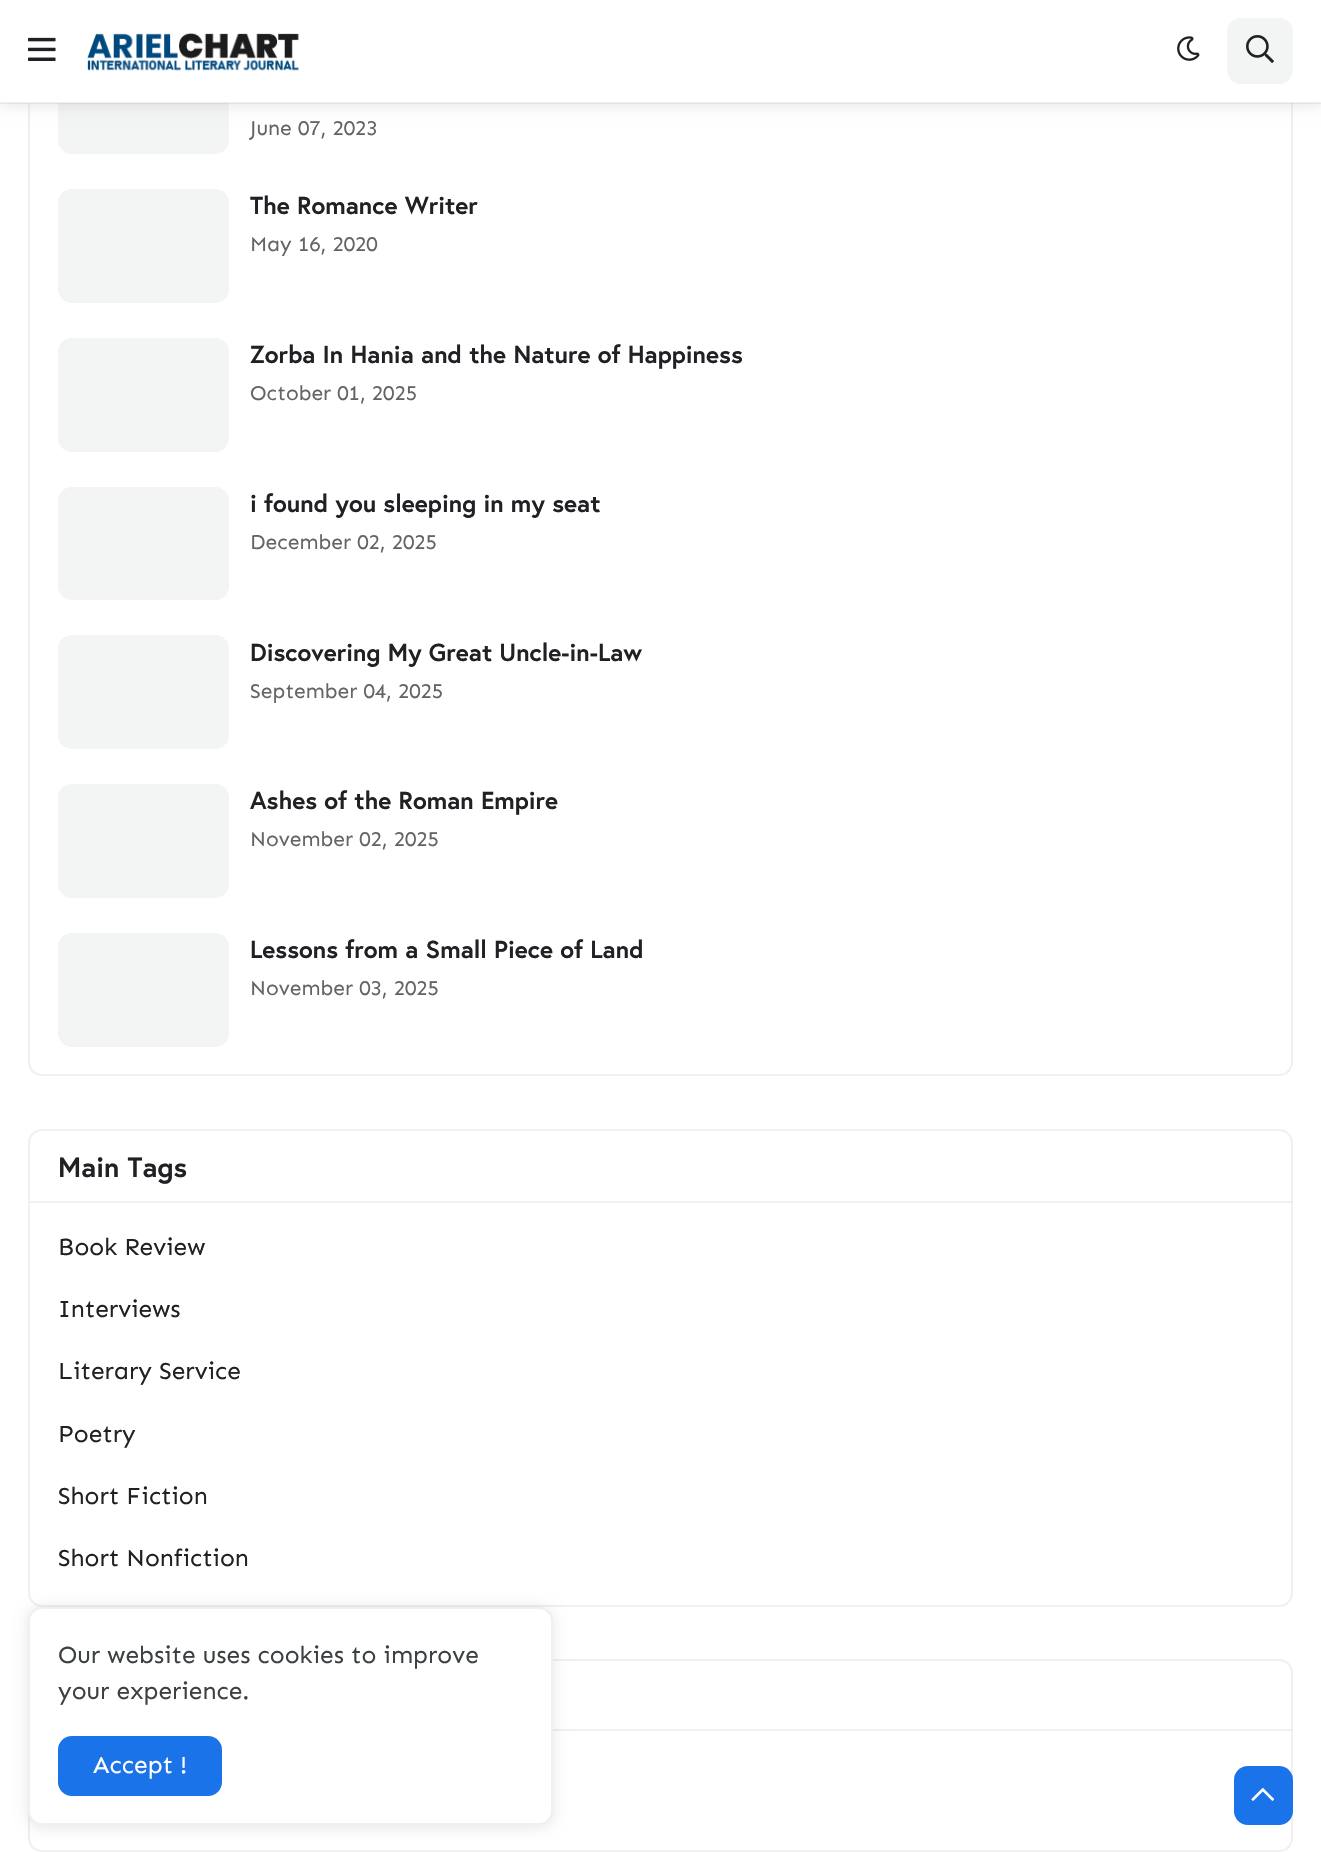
void draw(SkCanvas* canvas) {
    SkPaint paint;
    paint.setAntiAlias(true);
    auto face = [&](const char* family, int weight, float size, bool italic = false) {
        SkFontStyle style(weight, SkFontStyle::kNormal_Width,
            italic ? SkFontStyle::kItalic_Slant : SkFontStyle::kUpright_Slant);
        SkFont result(fontMgr->matchFamilyStyle(family, style), size);
        result.setSubpixel(true);
        return result;
    };
    auto write = [&](const char* s, float x, float y, const SkFont& font, SkColor color) {
        SkPaint ink(SkColor4f::FromColor(color));
        ink.setAntiAlias(true);
        canvas->drawString(s, x, y, font, ink);
    };
    auto block = [&](float x, float y, float w, float h, SkColor color) {
        SkPaint ink(SkColor4f::FromColor(color));
        ink.setAntiAlias(true);
        canvas->drawRect(SkRect::MakeXYWH(x, y, w, h), ink);
    };
    auto card = [&](float x, float y, float w, float h, float radius, SkColor color) {
        SkPaint ink(SkColor4f::FromColor(color));
        ink.setAntiAlias(true);
        canvas->drawRoundRect(SkRect::MakeXYWH(x, y, w, h), radius, radius, ink);
    };
    auto paste = [&](const char* path, float x, float y, float w, float h) {
        auto image = SkImages::DeferredFromEncodedData(SkData::MakeFromFileName(path));
        canvas->drawImageRect(image, SkRect::MakeXYWH(x, y, w, h), SkSamplingOptions());
    };
    canvas->clear(SK_ColorWHITE);
    paint.setStyle(SkPaint::kStroke_Style);
    paint.setStrokeWidth(2);
    paint.setColor(SkColorSetRGB(240, 240, 240));
    canvas->drawRoundRect(SkRect::MakeXYWH(29, -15, 1263, 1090), 13, 13, paint);
    card(58, 40, 171, 114, 14, SkColorSetRGB(243, 245, 245));
    paint.setStyle(SkPaint::kFill_Style);
    paint.setColor(SkColorSetARGB(26, 0, 0, 0));
    paint.setMaskFilter(SkMaskFilter::MakeBlur(kNormal_SkBlurStyle, 7));
    canvas->drawRect(SkRect::MakeXYWH(0, 2, 1321, 103), paint);
    paint.setMaskFilter(nullptr);
    block(0, 0, 1321, 103, SK_ColorWHITE);
    block(0, 102, 1321, 2, SkColorSetARGB(38, 155, 155, 155));
    paste("pic1.png", 28, 37, 28, 24);
    paste("pic2.png", 87, 33, 212, 38);
    paste("pic3.png", 1177, 36, 23, 25);
    card(1227, 18, 66, 66, 14, SkColorSetRGB(243, 245, 245));
    paste("pic4.png", 1246, 35, 28, 28);
    auto kFont1 = face("Sen", 400, 21);
    write("June 07, 2023", 250, 135, kFont1, SkColorSetRGB(99, 100, 102));
    card(58, 189, 171, 114, 14, SkColorSetRGB(243, 245, 245));
    auto kFont2 = face("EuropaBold", 700, 24.5f);
    write("The Romance Writer", 250, 214, kFont2, SkColorSetRGB(32, 33, 36));
    write("May 16, 2020", 250, 251, kFont1, SkColorSetRGB(99, 100, 102));
    card(58, 338, 171, 114, 14, SkColorSetRGB(243, 245, 245));
    write("Zorba In Hania and the Nature of Happiness", 250, 363, kFont2, SkColorSetRGB(32, 33, 36));
    write("October 01, 2025", 250, 400, kFont1, SkColorSetRGB(99, 100, 102));
    card(58, 487, 171, 113, 14, SkColorSetRGB(243, 245, 245));
    write("i found you sleeping in my seat", 250, 512, kFont2, SkColorSetRGB(32, 33, 36));
    write("December 02, 2025", 250, 549, kFont1, SkColorSetRGB(99, 100, 102));
    card(58, 635, 171, 114, 14, SkColorSetRGB(243, 245, 245));
    write("Discovering My Great Uncle-in-Law", 250, 661, kFont2, SkColorSetRGB(32, 33, 36));
    write("September 04, 2025", 250, 698, kFont1, SkColorSetRGB(99, 100, 102));
    card(58, 784, 171, 114, 14, SkColorSetRGB(243, 245, 245));
    write("Ashes of the Roman Empire", 250, 809, kFont2, SkColorSetRGB(32, 33, 36));
    write("November 02, 2025", 250, 846, kFont1, SkColorSetRGB(99, 100, 102));
    card(58, 933, 171, 114, 14, SkColorSetRGB(243, 245, 245));
    write("Lessons from a Small Piece of Land", 250, 958, kFont2, SkColorSetRGB(32, 33, 36));
    write("November 03, 2025", 250, 995, kFont1, SkColorSetRGB(99, 100, 102));
    paint.setStyle(SkPaint::kStroke_Style);
    paint.setColor(SkColorSetRGB(240, 240, 240));
    canvas->drawRoundRect(SkRect::MakeXYWH(29, 1130, 1263, 476), 13, 13, paint);
    block(30, 1201, 1262, 2, SkColorSetARGB(38, 155, 155, 155));
    auto kFont3 = face("EuropaBold", 700, 28);
    write("Main Tags", 58, 1177, kFont3, SkColorSetRGB(32, 33, 36));
    auto kFont4 = face("Sen", 400, 24.5f);
    write("Book Review", 58, 1255, kFont4, SkColorSetRGB(32, 33, 36));
    write("Interviews", 58, 1317, kFont4, SkColorSetRGB(32, 33, 36));
    write("Literary Service", 58, 1379, kFont4, SkColorSetRGB(32, 33, 36));
    write("Poetry", 58, 1442, kFont4, SkColorSetRGB(32, 33, 36));
    write("Short Fiction", 58, 1504, kFont4, SkColorSetRGB(32, 33, 36));
    write("Short Nonfiction", 58, 1566, kFont4, SkColorSetRGB(32, 33, 36));
    canvas->drawRoundRect(SkRect::MakeXYWH(29, 1660, 1263, 191), 13, 13, paint);
    block(553, 1729, 739, 2, SkColorSetARGB(38, 155, 155, 155));
    paint.setStyle(SkPaint::kFill_Style);
    paint.setColor(SkColorSetARGB(26, 0, 0, 0));
    paint.setMaskFilter(SkMaskFilter::MakeBlur(kNormal_SkBlurStyle, 7));
    canvas->drawRoundRect(SkRect::MakeXYWH(28, 1608, 525, 219), 14, 14, paint);
    paint.setMaskFilter(nullptr);
    card(28, 1607, 525, 218, 14, SK_ColorWHITE);
    paint.setStyle(SkPaint::kStroke_Style);
    paint.setColor(SkColorSetARGB(38, 155, 155, 155));
    canvas->drawRoundRect(SkRect::MakeXYWH(29, 1608, 523, 216), 13, 13, paint);
    write("Our website uses cookies to improve", 58, 1663, kFont4, SkColorSetRGB(60, 64, 67));
    write("your experience.", 58, 1699, kFont4, SkColorSetRGB(60, 64, 67));
    card(58, 1736, 164, 60, 14, SkColorSetRGB(26, 115, 232));
    write("Accept !", 93, 1773, kFont4, SK_ColorWHITE);
    card(1234, 1766, 59, 59, 14, SkColorSetRGB(26, 115, 232));
    paste("pic5.png", 1251, 1787, 24, 14);
}
